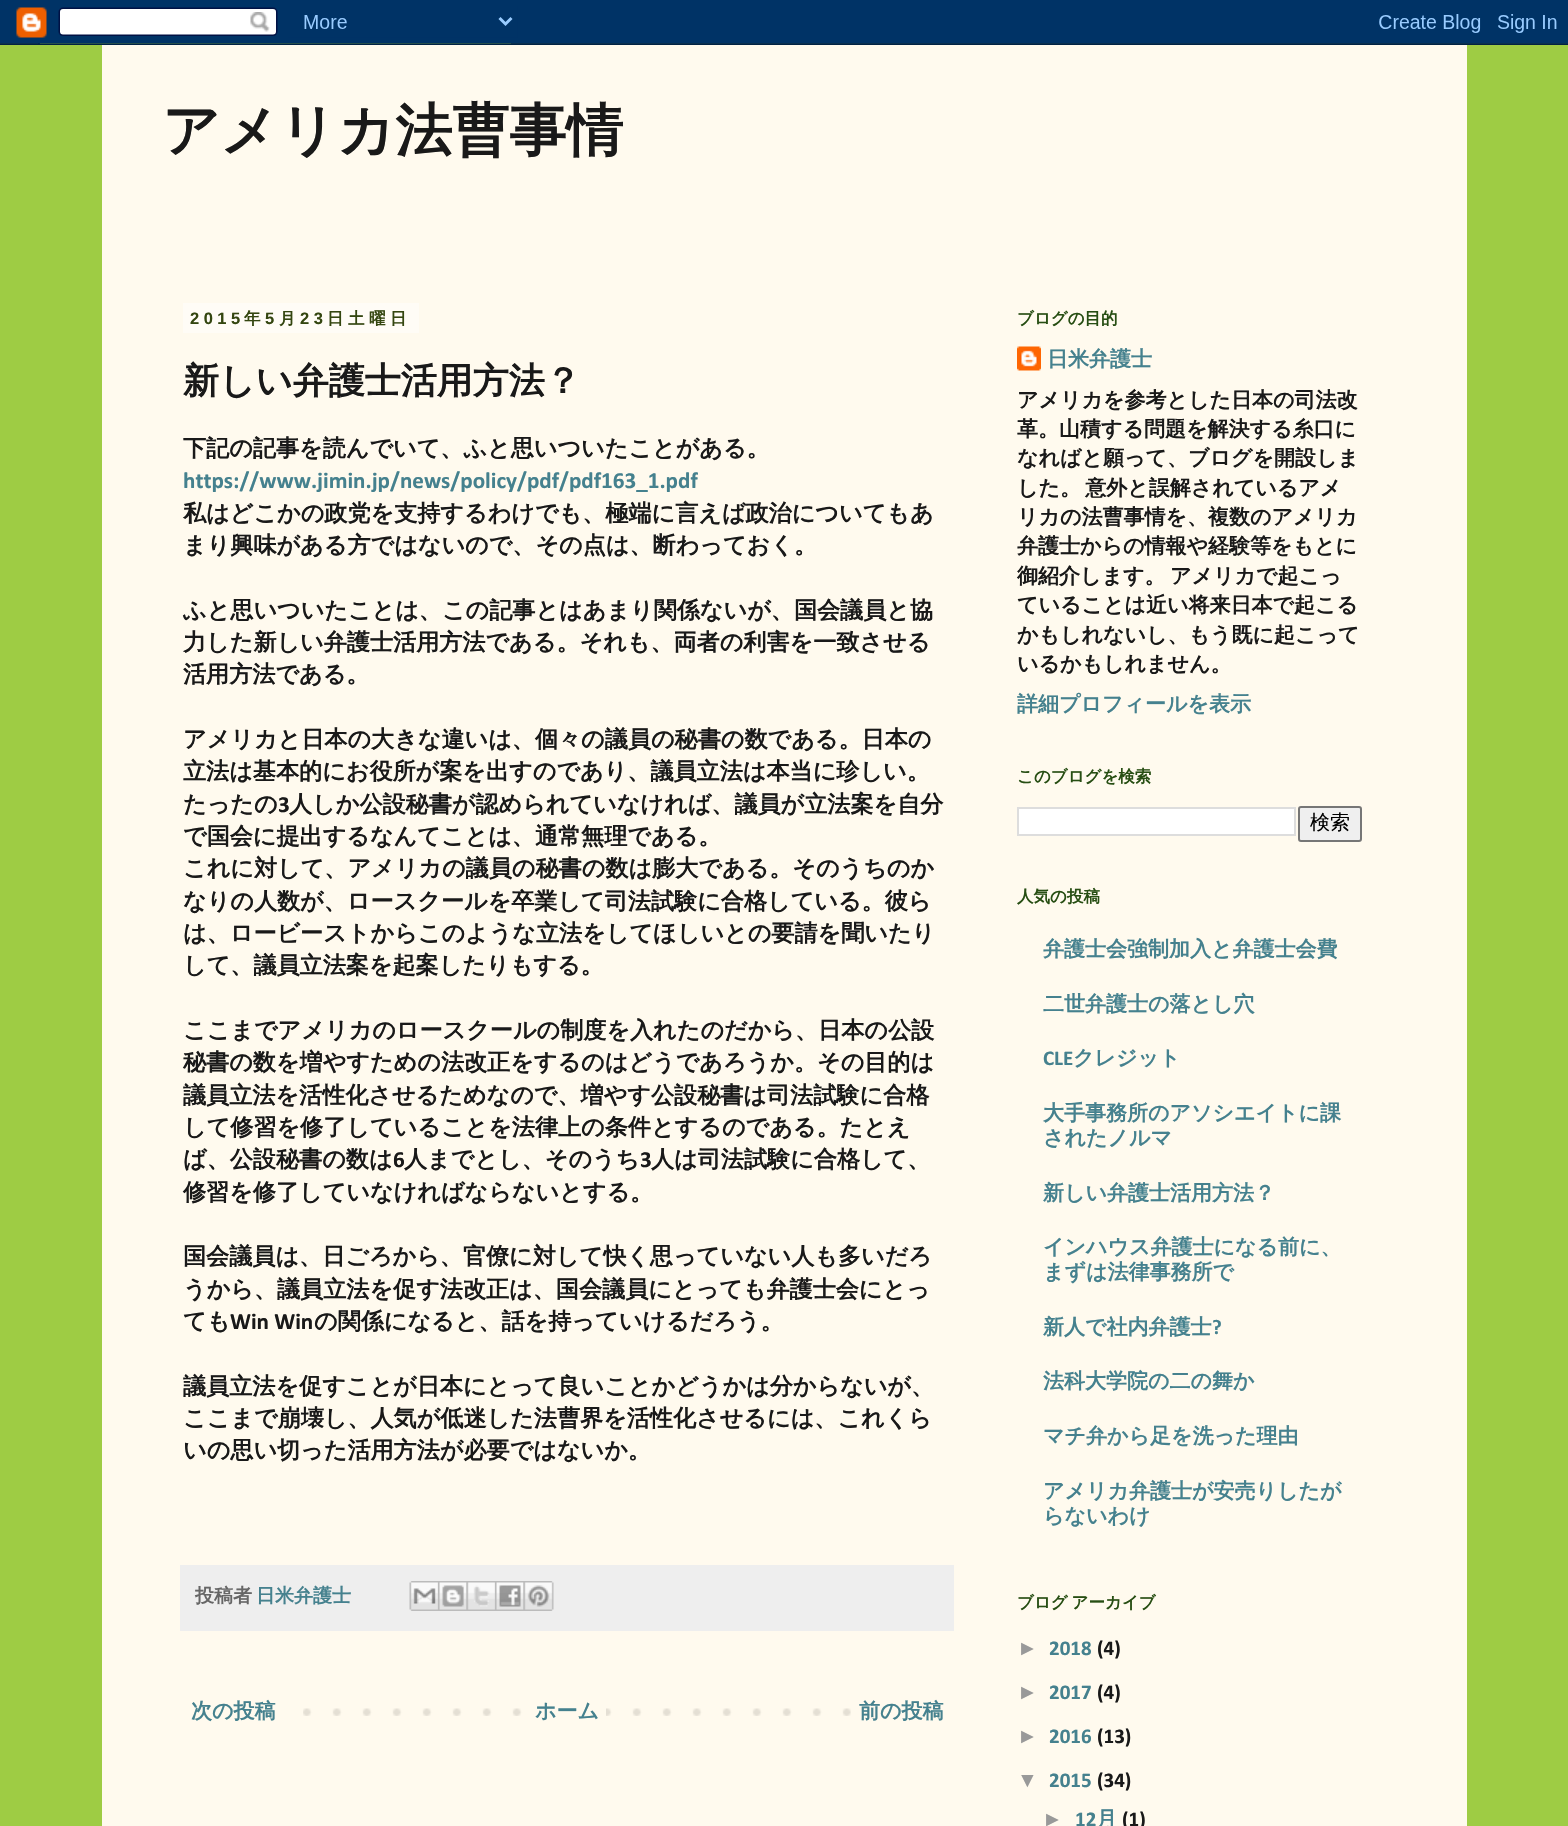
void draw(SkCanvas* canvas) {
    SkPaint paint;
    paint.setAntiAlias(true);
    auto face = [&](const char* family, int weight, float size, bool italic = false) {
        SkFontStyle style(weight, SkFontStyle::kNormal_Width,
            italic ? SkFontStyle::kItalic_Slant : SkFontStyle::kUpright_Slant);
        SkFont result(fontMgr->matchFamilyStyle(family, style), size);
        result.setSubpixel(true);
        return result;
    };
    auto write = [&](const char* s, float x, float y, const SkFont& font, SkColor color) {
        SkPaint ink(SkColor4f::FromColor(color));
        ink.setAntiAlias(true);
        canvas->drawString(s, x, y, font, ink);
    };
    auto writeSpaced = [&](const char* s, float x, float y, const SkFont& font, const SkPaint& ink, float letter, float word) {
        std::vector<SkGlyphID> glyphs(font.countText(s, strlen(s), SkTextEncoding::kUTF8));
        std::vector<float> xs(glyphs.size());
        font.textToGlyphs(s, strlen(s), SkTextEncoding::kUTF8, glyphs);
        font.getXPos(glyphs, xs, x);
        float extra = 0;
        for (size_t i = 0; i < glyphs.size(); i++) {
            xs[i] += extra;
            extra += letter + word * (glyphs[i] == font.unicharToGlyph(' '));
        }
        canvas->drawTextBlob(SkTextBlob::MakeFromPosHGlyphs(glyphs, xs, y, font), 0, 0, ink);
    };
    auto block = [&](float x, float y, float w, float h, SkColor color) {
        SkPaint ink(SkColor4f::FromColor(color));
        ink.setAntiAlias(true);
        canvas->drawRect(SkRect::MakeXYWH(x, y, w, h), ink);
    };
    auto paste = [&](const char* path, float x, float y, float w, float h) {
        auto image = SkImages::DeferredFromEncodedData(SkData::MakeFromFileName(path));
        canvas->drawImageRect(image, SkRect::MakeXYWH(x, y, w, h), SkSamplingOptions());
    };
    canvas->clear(SkColorSetRGB(158, 204, 68));
    paste("pic1.png", 0, 0, 1568, 45);
    block(102, 45, 1365, 1781, SkColorSetRGB(255, 250, 238));
    auto kFont1 = face("WenQuanYi Zen Hei", 700, 57);
    write("アメリカ法曹事情", 162, 150, kFont1, SkColorSetRGB(25, 25, 25));
    block(183, 303, 236, 30, SkColorSetRGB(255, 252, 246));
    auto kFont2 = face("Liberation Sans", 700, 16.5f);
    paint.setColor(SkColorSetRGB(52, 70, 16));
    writeSpaced("2015", 190, 324, kFont2, paint, 4.5f, 0);
    auto kFont3 = face("WenQuanYi Zen Hei", 700, 16.5f);
    writeSpaced("年", 244, 324, kFont3, paint, 4.5f, 0);
    writeSpaced("5", 265, 324, kFont2, paint, 4.5f, 0);
    writeSpaced("月", 279, 324, kFont3, paint, 4.5f, 0);
    writeSpaced("23", 300, 324, kFont2, paint, 4.5f, 0);
    writeSpaced("日土曜日", 327, 324, kFont3, paint, 4.5f, 0);
    auto kFont4 = face("WenQuanYi Zen Hei", 700, 36);
    write("新しい弁護士活用方法？", 183, 393, kFont4, SkColorSetRGB(25, 25, 25));
    auto kFont5 = face("WenQuanYi Zen Hei", 700, 23.1f);
    write("下記の記事を読んでいて、ふと思いついたことがある。", 183, 456, kFont5, SkColorSetRGB(25, 25, 25));
    auto kFont6 = face("Calibri", 700, 23.1f);
    write("https://www.jimin.jp/news/policy/pdf/pdf163_1.pdf", 183, 488, kFont6, SkColorSetRGB(69, 129, 142));
    write("私はどこかの政党を支持するわけでも、極端に言えば政治についてもあ", 183, 521, kFont5, SkColorSetRGB(25, 25, 25));
    write("まり興味がある方ではないので、その点は、断わっておく。", 183, 553, kFont5, SkColorSetRGB(25, 25, 25));
    write("ふと思いついたことは、この記事とはあまり関係ないが、国会議員と協", 183, 618, kFont5, SkColorSetRGB(25, 25, 25));
    write("力した新しい弁護士活用方法である。それも、両者の利害を一致させる", 183, 650, kFont5, SkColorSetRGB(25, 25, 25));
    write("活用方法である。", 183, 682, kFont5, SkColorSetRGB(25, 25, 25));
    write("アメリカと日本の大きな違いは、個々の議員の秘書の数である。日本の", 183, 747, kFont5, SkColorSetRGB(25, 25, 25));
    write("立法は基本的にお役所が案を出すのであり、議員立法は本当に珍しい。", 183, 779, kFont5, SkColorSetRGB(25, 25, 25));
    write("たったの", 183, 812, kFont5, SkColorSetRGB(25, 25, 25));
    write("3", 278, 812, kFont6, SkColorSetRGB(25, 25, 25));
    write("人しか公設秘書が認められていなければ、議員が立法案を自分", 289, 812, kFont5, SkColorSetRGB(25, 25, 25));
    write("で国会に提出するなんてことは、通常無理である。", 183, 844, kFont5, SkColorSetRGB(25, 25, 25));
    write("これに対して、アメリカの議員の秘書の数は膨大である。そのうちのか", 183, 876, kFont5, SkColorSetRGB(25, 25, 25));
    write("なりの人数が、ロースクールを卒業して司法試験に合格している。彼ら", 183, 909, kFont5, SkColorSetRGB(25, 25, 25));
    write("は、ロービーストからこのような立法をしてほしいとの要請を聞いたり", 183, 941, kFont5, SkColorSetRGB(25, 25, 25));
    write("して、議員立法案を起案したりもする。", 183, 973, kFont5, SkColorSetRGB(25, 25, 25));
    write("ここまでアメリカのロースクールの制度を入れたのだから、日本の公設", 183, 1038, kFont5, SkColorSetRGB(25, 25, 25));
    write("秘書の数を増やすための法改正をするのはどうであろうか。その目的は", 183, 1070, kFont5, SkColorSetRGB(25, 25, 25));
    write("議員立法を活性化させるためなので、増やす公設秘書は司法試験に合格", 183, 1103, kFont5, SkColorSetRGB(25, 25, 25));
    write("して修習を修了していることを法律上の条件とするのである。たとえ", 183, 1135, kFont5, SkColorSetRGB(25, 25, 25));
    write("ば、公設秘書の数は", 183, 1167, kFont5, SkColorSetRGB(25, 25, 25));
    write("6", 393, 1167, kFont6, SkColorSetRGB(25, 25, 25));
    write("人までとし、そのうち", 404, 1167, kFont5, SkColorSetRGB(25, 25, 25));
    write("3", 640, 1167, kFont6, SkColorSetRGB(25, 25, 25));
    write("人は司法試験に合格して、", 651, 1167, kFont5, SkColorSetRGB(25, 25, 25));
    write("修習を修了していなければならないとする。", 183, 1200, kFont5, SkColorSetRGB(25, 25, 25));
    write("国会議員は、日ごろから、官僚に対して快く思っていない人も多いだろ", 183, 1264, kFont5, SkColorSetRGB(25, 25, 25));
    write("うから、議員立法を促す法改正は、国会議員にとっても弁護士会にとっ", 183, 1297, kFont5, SkColorSetRGB(25, 25, 25));
    write("ても", 183, 1329, kFont5, SkColorSetRGB(25, 25, 25));
    write("Win Win", 230, 1329, kFont6, SkColorSetRGB(25, 25, 25));
    write("の関係になると、話を持っていけるだろう。", 314, 1329, kFont5, SkColorSetRGB(25, 25, 25));
    write("議員立法を促すことが日本にとって良いことかどうかは分からないが、", 183, 1394, kFont5, SkColorSetRGB(25, 25, 25));
    write("ここまで崩壊し、人気が低迷した法曹界を活性化させるには、これくら", 183, 1426, kFont5, SkColorSetRGB(25, 25, 25));
    write("いの思い切った活用方法が必要ではないか。", 183, 1458, kFont5, SkColorSetRGB(25, 25, 25));
    block(180, 1565, 774, 66, SkColorSetRGB(238, 238, 238));
    auto kFont7 = face("WenQuanYi Zen Hei", 700, 19);
    write("投稿者", 195, 1602, kFont7, SkColorSetRGB(102, 102, 102));
    write("日米弁護士", 256, 1602, kFont7, SkColorSetRGB(69, 129, 142));
    paste("pic2.png", 409, 1581, 29, 30);
    paste("pic3.png", 438, 1581, 29, 30);
    paste("pic4.png", 466, 1581, 29, 30);
    paste("pic5.png", 495, 1581, 29, 30);
    paste("pic6.png", 523, 1581, 31, 30);
    paste("pic7.png", 303, 1708, 548, 8);
    auto kFont8 = face("WenQuanYi Zen Hei", 700, 21);
    write("次の投稿", 191, 1718, kFont8, SkColorSetRGB(69, 129, 142));
    block(542, 1708, 64, 8, SkColorSetRGB(255, 250, 238));
    write("ホーム", 535, 1718, kFont8, SkColorSetRGB(69, 129, 142));
    write("前の投稿", 859, 1718, kFont8, SkColorSetRGB(69, 129, 142));
    write("ブログの目的", 1017, 324, kFont3, SkColorSetRGB(39, 78, 19));
    paste("pic8.png", 1017, 346, 24, 25);
    write("日米弁護士", 1047, 366, kFont8, SkColorSetRGB(69, 129, 142));
    write("アメリカを参考とした日本の司法改", 1017, 407, kFont8, SkColorSetRGB(25, 25, 25));
    write("革。山積する問題を解決する糸口に", 1017, 436, kFont8, SkColorSetRGB(25, 25, 25));
    write("なればと願って、ブログを開設しま", 1017, 465, kFont8, SkColorSetRGB(25, 25, 25));
    paint.setColor(SkColorSetRGB(25, 25, 25));
    writeSpaced("した。 意外と誤解されているアメ", 1017, 495, kFont8, paint, 0, -2);
    write("リカの法曹事情を、複数のアメリカ", 1017, 524, kFont8, SkColorSetRGB(25, 25, 25));
    write("弁護士からの情報や経験等をもとに", 1017, 553, kFont8, SkColorSetRGB(25, 25, 25));
    write("御紹介します。", 1017, 583, kFont8, SkColorSetRGB(25, 25, 25));
    write("アメリカで起こっ", 1170, 583, kFont8, SkColorSetRGB(25, 25, 25));
    write("ていることは近い将来日本で起こる", 1017, 612, kFont8, SkColorSetRGB(25, 25, 25));
    write("かもしれないし、もう既に起こって", 1017, 642, kFont8, SkColorSetRGB(25, 25, 25));
    write("いるかもしれません。", 1017, 671, kFont8, SkColorSetRGB(25, 25, 25));
    write("詳細プロフィールを表示", 1017, 711, kFont8, SkColorSetRGB(69, 129, 142));
    write("このブログを検索", 1017, 782, kFont3, SkColorSetRGB(39, 78, 19));
    paint.setColor(SK_ColorWHITE);
    canvas->drawRect(SkRect::MakeXYWH(1018, 808, 277, 27), paint);
    paint.setStyle(SkPaint::kStroke_Style);
    paint.setStrokeWidth(2);
    paint.setColor(SkColorSetRGB(221, 221, 221));
    canvas->drawRect(SkRect::MakeXYWH(1018, 808, 277, 27), paint);
    paint.setStyle(SkPaint::kFill_Style);
    paint.setColor(SkColorSetRGB(239, 239, 239));
    canvas->drawRoundRect(SkRect::MakeXYWH(1299, 807, 62, 34), 2, 2, paint);
    paint.setStyle(SkPaint::kStroke_Style);
    paint.setColor(SkColorSetRGB(118, 118, 118));
    canvas->drawRoundRect(SkRect::MakeXYWH(1299, 807, 62, 34), 2, 2, paint);
    auto kFont9 = face("WenQuanYi Zen Hei", 500, 20);
    write("検索", 1310, 829, kFont9, SK_ColorBLACK);
    write("人気の投稿", 1017, 902, kFont3, SkColorSetRGB(39, 78, 19));
    write("弁護士会強制加入と弁護士会費", 1043, 956, kFont8, SkColorSetRGB(69, 129, 142));
    write("二世弁護士の落とし穴", 1043, 1011, kFont8, SkColorSetRGB(69, 129, 142));
    auto kFont10 = face("Calibri", 700, 21);
    write("CLE", 1043, 1065, kFont10, SkColorSetRGB(69, 129, 142));
    write("クレジット", 1073, 1065, kFont8, SkColorSetRGB(69, 129, 142));
    write("大手事務所のアソシエイトに課", 1043, 1120, kFont8, SkColorSetRGB(69, 129, 142));
    write("されたノルマ", 1043, 1145, kFont8, SkColorSetRGB(69, 129, 142));
    write("新しい弁護士活用方法？", 1043, 1200, kFont8, SkColorSetRGB(69, 129, 142));
    write("インハウス弁護士になる前に、", 1043, 1254, kFont8, SkColorSetRGB(69, 129, 142));
    write("まずは法律事務所で", 1043, 1279, kFont8, SkColorSetRGB(69, 129, 142));
    write("新人で社内弁護士", 1043, 1334, kFont8, SkColorSetRGB(69, 129, 142));
    write("?", 1212, 1334, kFont10, SkColorSetRGB(69, 129, 142));
    write("法科大学院の二の舞か", 1043, 1388, kFont8, SkColorSetRGB(69, 129, 142));
    write("マチ弁から足を洗った理由", 1043, 1443, kFont8, SkColorSetRGB(69, 129, 142));
    write("アメリカ弁護士が安売りしたが", 1043, 1498, kFont8, SkColorSetRGB(69, 129, 142));
    write("らないわけ", 1043, 1523, kFont8, SkColorSetRGB(69, 129, 142));
    paint.setStyle(SkPaint::kFill_Style);
    paint.setColor(SkColorSetRGB(39, 78, 19));
    writeSpaced("ブログ アーカイブ", 1017, 1608, kFont3, paint, 0, -1);
    auto kFont11 = face("Liberation Sans", 700, 21);
    write("►", 1017, 1655, kFont11, SkColorSetRGB(153, 153, 153));
    write("2018", 1049, 1655, kFont10, SkColorSetRGB(69, 129, 142));
    write("(4)", 1097, 1655, kFont10, SkColorSetRGB(25, 25, 25));
    write("►", 1017, 1699, kFont11, SkColorSetRGB(153, 153, 153));
    write("2017", 1049, 1699, kFont10, SkColorSetRGB(69, 129, 142));
    write("(4)", 1097, 1699, kFont10, SkColorSetRGB(25, 25, 25));
    write("►", 1017, 1743, kFont11, SkColorSetRGB(153, 153, 153));
    write("2016", 1049, 1743, kFont10, SkColorSetRGB(69, 129, 142));
    write("(13)", 1097, 1743, kFont10, SkColorSetRGB(25, 25, 25));
    write("▼", 1017, 1787, kFont11, SkColorSetRGB(153, 153, 153));
    write("2015", 1049, 1787, kFont10, SkColorSetRGB(69, 129, 142));
    write("(34)", 1097, 1787, kFont10, SkColorSetRGB(25, 25, 25));
    write("►", 1042, 1826, kFont11, SkColorSetRGB(153, 153, 153));
    write("12", 1075, 1826, kFont10, SkColorSetRGB(69, 129, 142));
    write("月", 1096, 1826, kFont8, SkColorSetRGB(69, 129, 142));
    write("(1)", 1122, 1826, kFont10, SkColorSetRGB(25, 25, 25));
}
